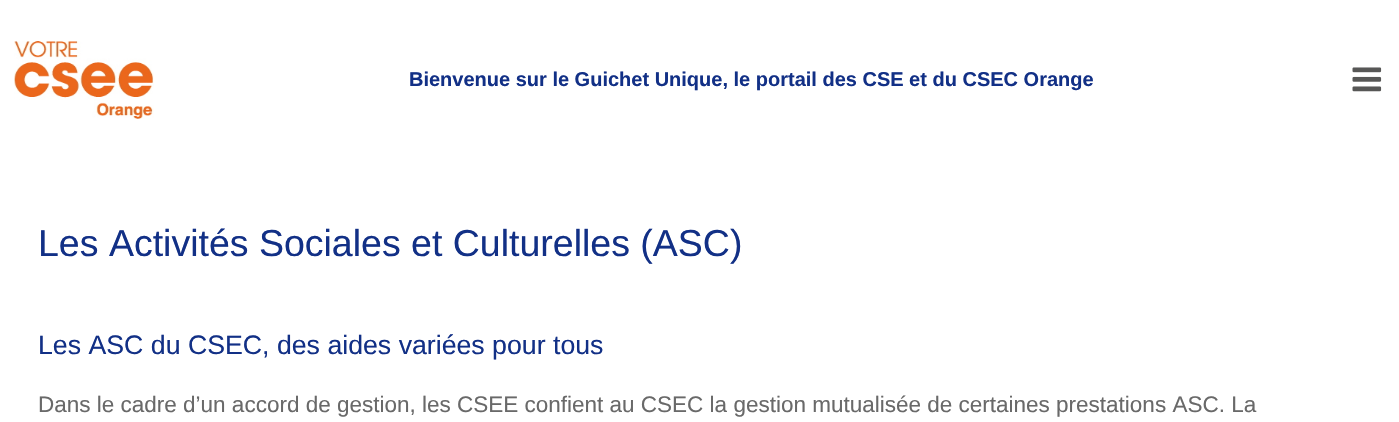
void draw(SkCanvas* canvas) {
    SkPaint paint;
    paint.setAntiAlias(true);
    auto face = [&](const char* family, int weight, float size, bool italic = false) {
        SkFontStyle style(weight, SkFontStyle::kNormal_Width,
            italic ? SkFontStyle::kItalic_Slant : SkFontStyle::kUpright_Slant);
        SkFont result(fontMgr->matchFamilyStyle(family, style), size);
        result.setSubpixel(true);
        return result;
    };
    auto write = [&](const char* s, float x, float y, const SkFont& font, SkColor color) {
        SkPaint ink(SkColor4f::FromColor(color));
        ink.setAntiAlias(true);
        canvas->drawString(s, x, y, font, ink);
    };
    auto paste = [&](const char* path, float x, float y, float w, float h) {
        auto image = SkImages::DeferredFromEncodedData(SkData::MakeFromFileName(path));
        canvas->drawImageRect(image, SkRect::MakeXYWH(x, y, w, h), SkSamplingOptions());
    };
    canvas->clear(SK_ColorWHITE);
    paste("pic1.png", 14, 41, 140, 78);
    auto kFont1 = face("Liberation Sans", 700, 20);
    write("Bienvenue sur le Guichet Unique, le portail des CSE et du CSEC Orange", 409, 86, kFont1, SkColorSetRGB(18, 48, 134));
    paste("pic2.png", 1352, 67, 30, 25);
    auto kFont2 = face("Liberation Sans", 400, 37.5f);
    write("Les Activités Sociales et Culturelles (ASC)", 38, 256, kFont2, SkColorSetRGB(18, 48, 134));
    auto kFont3 = face("Liberation Sans", 400, 26.7f);
    write("Les ASC du CSEC, des aides variées pour tous", 38, 354, kFont3, SkColorSetRGB(18, 48, 134));
    auto kFont4 = face("Liberation Sans", 400, 22.5f);
    write("Dans le cadre d’un accord de gestion, les CSEE confient au CSEC la gestion mutualisée de certaines prestations ASC. La", 38, 412, kFont4, SkColorSetRGB(105, 105, 105));
}
